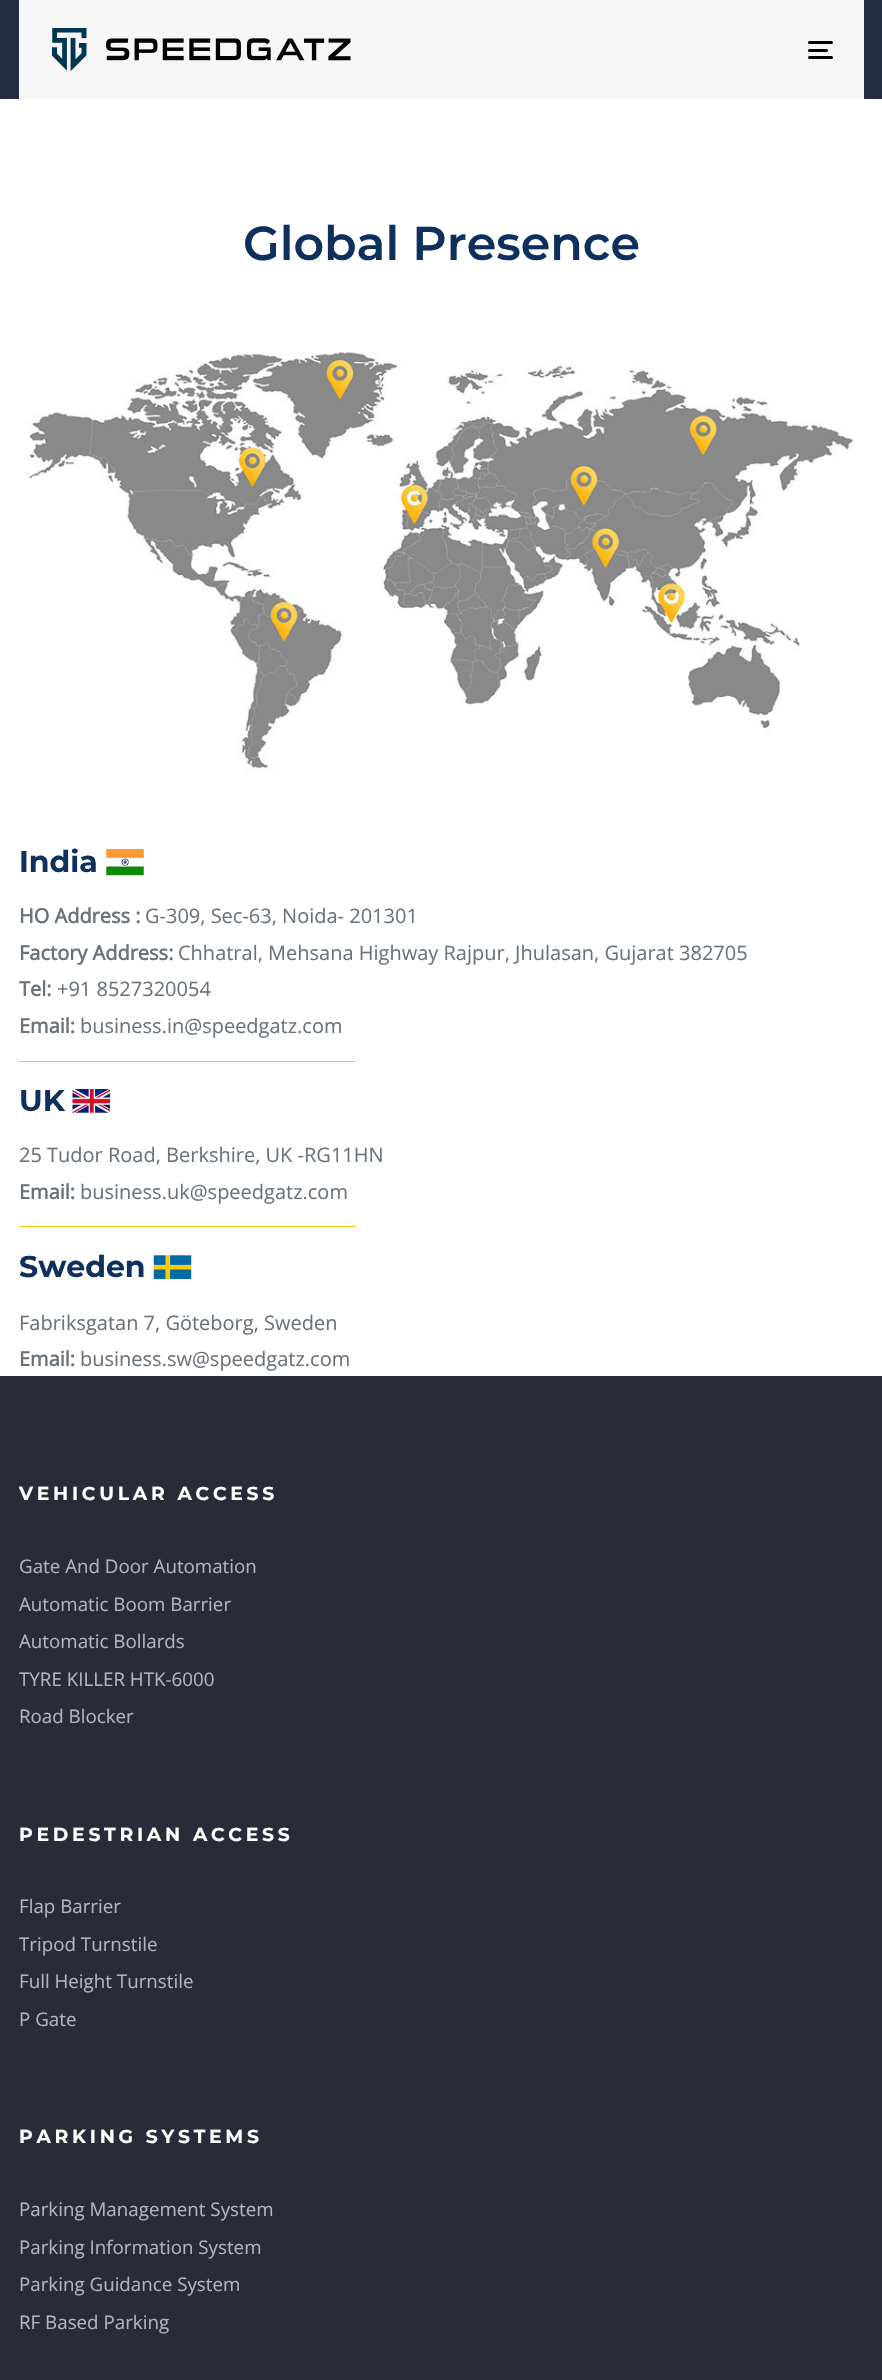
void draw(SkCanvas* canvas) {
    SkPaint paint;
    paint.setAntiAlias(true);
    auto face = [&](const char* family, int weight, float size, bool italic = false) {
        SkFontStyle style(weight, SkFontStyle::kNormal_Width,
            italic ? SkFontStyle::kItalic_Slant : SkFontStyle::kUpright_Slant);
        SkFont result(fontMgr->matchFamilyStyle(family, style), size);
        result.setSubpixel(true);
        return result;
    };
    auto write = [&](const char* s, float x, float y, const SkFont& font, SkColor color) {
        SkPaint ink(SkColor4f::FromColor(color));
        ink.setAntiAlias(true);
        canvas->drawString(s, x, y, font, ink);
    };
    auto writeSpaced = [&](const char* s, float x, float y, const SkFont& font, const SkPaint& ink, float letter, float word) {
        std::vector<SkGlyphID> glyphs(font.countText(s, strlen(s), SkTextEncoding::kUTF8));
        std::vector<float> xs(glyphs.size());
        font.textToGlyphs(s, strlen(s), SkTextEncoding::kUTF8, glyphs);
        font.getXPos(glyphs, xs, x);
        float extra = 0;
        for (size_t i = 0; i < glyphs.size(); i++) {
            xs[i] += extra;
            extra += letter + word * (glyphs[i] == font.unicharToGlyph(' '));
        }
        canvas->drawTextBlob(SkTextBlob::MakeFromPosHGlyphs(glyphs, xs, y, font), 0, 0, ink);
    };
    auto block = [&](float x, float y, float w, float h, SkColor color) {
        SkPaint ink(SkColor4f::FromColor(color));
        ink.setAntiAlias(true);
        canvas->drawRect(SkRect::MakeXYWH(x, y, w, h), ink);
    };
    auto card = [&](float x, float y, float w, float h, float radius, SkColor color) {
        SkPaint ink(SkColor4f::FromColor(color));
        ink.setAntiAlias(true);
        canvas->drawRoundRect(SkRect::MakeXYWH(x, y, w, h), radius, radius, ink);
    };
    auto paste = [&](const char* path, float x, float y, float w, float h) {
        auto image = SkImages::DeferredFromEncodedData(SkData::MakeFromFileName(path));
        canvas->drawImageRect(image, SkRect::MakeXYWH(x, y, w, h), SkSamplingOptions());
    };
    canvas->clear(SK_ColorWHITE);
    block(0, 0, 882, 99, SkColorSetRGB(38, 43, 68));
    block(19, 0, 845, 99, SkColorSetRGB(246, 246, 246));
    paste("pic1.png", 52, 28, 299, 43);
    card(808, 41, 25, 3, 1.5f, SK_ColorBLACK);
    card(808, 49, 20, 3, 1.5f, SK_ColorBLACK);
    card(808, 56, 25, 3, 1.5f, SK_ColorBLACK);
    auto kFont1 = face("Montserrat", 600, 47.5f);
    write("Global Presence", 243, 260, kFont1, SkColorSetRGB(14, 48, 93));
    paste("pic2.png", 26, 352, 828, 420);
    auto kFont2 = face("Montserrat", 700, 30);
    write("India", 19, 872, kFont2, SkColorSetRGB(14, 48, 93));
    paste("pic3.png", 106, 849, 38, 27);
    auto kFont3 = face("Open Sans", 700, 20);
    write("HO Address :", 19, 923, kFont3, SkColorSetRGB(106, 115, 122));
    auto kFont4 = face("Open Sans", 400, 20);
    write("G-309, Sec-63, Noida- 201301", 145, 923, kFont4, SkColorSetRGB(106, 115, 122));
    write("Factory Address:", 19, 960, kFont3, SkColorSetRGB(106, 115, 122));
    write("Chhatral, Mehsana Highway Rajpur, Jhulasan, Gujarat 382705", 178, 960, kFont4, SkColorSetRGB(106, 115, 122));
    write("Tel:", 19, 996, kFont3, SkColorSetRGB(106, 115, 122));
    write("+91 8527320054", 57, 996, kFont4, SkColorSetRGB(106, 115, 122));
    write("Email:", 19, 1033, kFont3, SkColorSetRGB(106, 115, 122));
    write("business.in@speedgatz.com", 80, 1033, kFont4, SkColorSetRGB(106, 115, 122));
    block(19, 1061, 337, 1, SkColorSetRGB(255, 199, 10));
    write("UK", 19, 1111, kFont2, SkColorSetRGB(14, 48, 93));
    paste("pic4.png", 72, 1089, 38, 24);
    write("25 Tudor Road, Berkshire, UK -RG11HN", 19, 1162, kFont4, SkColorSetRGB(106, 115, 122));
    write("Email:", 19, 1199, kFont3, SkColorSetRGB(106, 115, 122));
    write("business.uk@speedgatz.com", 80, 1199, kFont4, SkColorSetRGB(106, 115, 122));
    block(19, 1226, 337, 1, SkColorSetRGB(255, 199, 10));
    write("Sweden", 19, 1277, kFont2, SkColorSetRGB(14, 48, 93));
    paste("pic5.png", 153, 1255, 39, 24);
    write("Fabriksgatan 7, Göteborg, Sweden", 19, 1330, kFont4, SkColorSetRGB(106, 115, 122));
    write("Email:", 19, 1366, kFont3, SkColorSetRGB(106, 115, 122));
    write("business.sw@speedgatz.com", 80, 1366, kFont4, SkColorSetRGB(106, 115, 122));
    block(0, 1376, 882, 1004, SkColorSetRGB(41, 43, 57));
    auto kFont5 = face("Montserrat", 700, 18.75f);
    paint.setColor(SK_ColorWHITE);
    writeSpaced("VEHICULAR ACCESS", 19, 1500, kFont5, paint, 3.75f, 0);
    auto kFont6 = face("Open Sans", 400, 18.75f);
    write("Gate And Door Automation", 19, 1573, kFont6, SkColorSetRGB(180, 181, 186));
    write("Automatic Boom Barrier", 19, 1611, kFont6, SkColorSetRGB(180, 181, 186));
    write("Automatic Bollards", 19, 1648, kFont6, SkColorSetRGB(180, 181, 186));
    write("TYRE KILLER HTK-6000", 19, 1686, kFont6, SkColorSetRGB(180, 181, 186));
    write("Road Blocker", 19, 1723, kFont6, SkColorSetRGB(180, 181, 186));
    writeSpaced("PEDESTRIAN ACCESS", 19, 1841, kFont5, paint, 3.75f, 0);
    write("Flap Barrier", 19, 1913, kFont6, SkColorSetRGB(180, 181, 186));
    write("Tripod Turnstile", 19, 1951, kFont6, SkColorSetRGB(180, 181, 186));
    write("Full Height Turnstile", 19, 1988, kFont6, SkColorSetRGB(180, 181, 186));
    write("P Gate", 19, 2026, kFont6, SkColorSetRGB(180, 181, 186));
    writeSpaced("PARKING SYSTEMS", 19, 2143, kFont5, paint, 3.75f, 0);
    write("Parking Management System", 19, 2216, kFont6, SkColorSetRGB(180, 181, 186));
    write("Parking Information System", 19, 2254, kFont6, SkColorSetRGB(180, 181, 186));
    write("Parking Guidance System", 19, 2291, kFont6, SkColorSetRGB(180, 181, 186));
    write("RF Based Parking", 19, 2329, kFont6, SkColorSetRGB(180, 181, 186));
}
